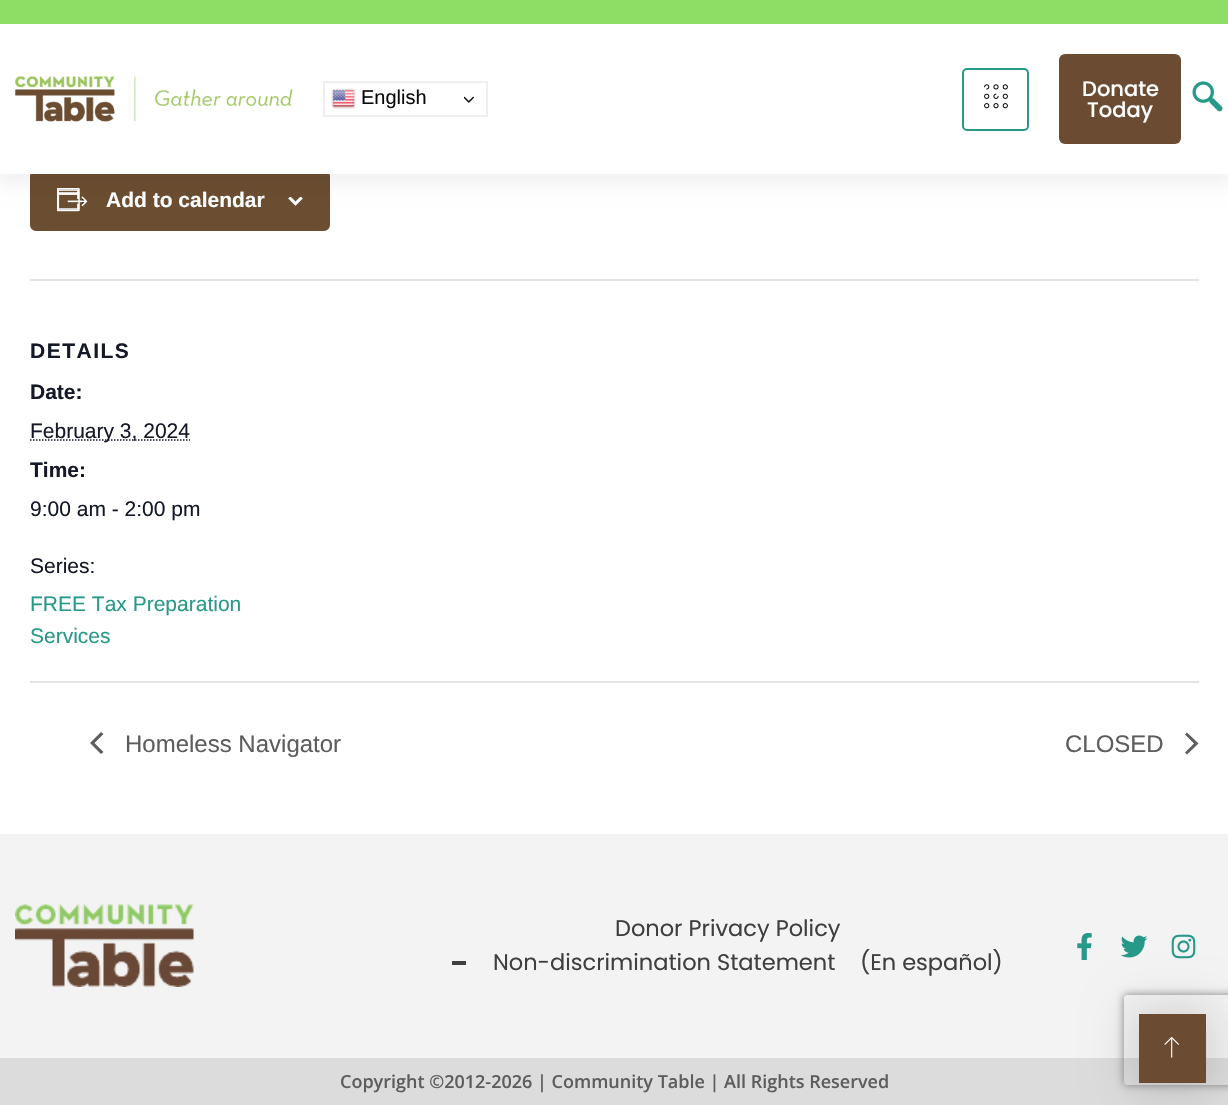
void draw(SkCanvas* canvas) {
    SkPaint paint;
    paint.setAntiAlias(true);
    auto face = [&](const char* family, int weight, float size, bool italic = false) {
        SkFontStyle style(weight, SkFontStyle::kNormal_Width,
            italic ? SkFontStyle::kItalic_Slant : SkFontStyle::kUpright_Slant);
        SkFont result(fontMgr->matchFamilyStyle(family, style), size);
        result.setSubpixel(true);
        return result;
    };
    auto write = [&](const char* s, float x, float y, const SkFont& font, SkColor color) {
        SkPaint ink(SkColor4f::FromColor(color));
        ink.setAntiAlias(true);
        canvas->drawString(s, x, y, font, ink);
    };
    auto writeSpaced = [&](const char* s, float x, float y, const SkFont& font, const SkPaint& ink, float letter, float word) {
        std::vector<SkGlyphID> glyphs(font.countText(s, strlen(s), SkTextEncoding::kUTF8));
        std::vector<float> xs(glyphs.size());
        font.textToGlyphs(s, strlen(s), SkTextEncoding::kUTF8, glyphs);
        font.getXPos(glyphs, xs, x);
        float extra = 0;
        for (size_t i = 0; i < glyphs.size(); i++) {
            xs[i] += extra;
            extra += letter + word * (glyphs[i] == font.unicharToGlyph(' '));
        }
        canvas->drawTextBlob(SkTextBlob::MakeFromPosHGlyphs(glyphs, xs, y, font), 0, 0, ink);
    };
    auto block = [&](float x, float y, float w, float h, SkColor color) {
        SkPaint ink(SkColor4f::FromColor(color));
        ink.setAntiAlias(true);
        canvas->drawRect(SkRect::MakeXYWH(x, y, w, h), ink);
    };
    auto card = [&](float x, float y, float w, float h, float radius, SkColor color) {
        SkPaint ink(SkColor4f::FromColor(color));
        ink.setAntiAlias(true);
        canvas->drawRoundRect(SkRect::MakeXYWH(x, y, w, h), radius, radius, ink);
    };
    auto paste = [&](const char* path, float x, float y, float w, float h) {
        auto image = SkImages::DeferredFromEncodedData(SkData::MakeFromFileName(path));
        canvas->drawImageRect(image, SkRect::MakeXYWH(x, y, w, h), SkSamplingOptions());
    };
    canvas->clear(SK_ColorWHITE);
    paint.setColor(SkColorSetRGB(107, 77, 49));
    canvas->drawRoundRect(SkRect::MakeXYWH(31, 171, 298, 59), 5, 5, paint);
    paint.setStyle(SkPaint::kStroke_Style);
    paint.setStrokeWidth(2);
    canvas->drawRoundRect(SkRect::MakeXYWH(31, 171, 298, 59), 5, 5, paint);
    paste("pic6.png", 57, 188, 31, 24);
    paste("pic7.png", 288, 197, 15, 9);
    paint.setStyle(SkPaint::kFill_Style);
    paint.setColor(SkColorSetARGB(13, 0, 0, 0));
    paint.setMaskFilter(SkMaskFilter::MakeBlur(kNormal_SkBlurStyle, 7.5f));
    canvas->drawRect(SkRect::MakeXYWH(-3, 5, 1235, 180), paint);
    paint.setMaskFilter(nullptr);
    block(0, 24, 1228, 150, SK_ColorWHITE);
    block(0, 0, 1228, 24, SkColorSetRGB(142, 221, 101));
    paste("pic1.png", 15, 76, 278, 46);
    paint.setStyle(SkPaint::kStroke_Style);
    paint.setColor(SkColorSetRGB(239, 239, 239));
    canvas->drawRect(SkRect::MakeXYWH(324, 82, 163, 34), paint);
    paste("pic2.png", 331, 88, 25, 21);
    auto kFont1 = face("Liberation Sans", 400, 20);
    write("English", 361, 104, kFont1, SkColorSetRGB(10, 10, 10));
    paste("pic3.png", 464, 96, 10, 7);
    paint.setColor(SkColorSetRGB(39, 153, 137));
    canvas->drawRoundRect(SkRect::MakeXYWH(963, 69, 65, 61), 4, 4, paint);
    paste("pic4.png", 984, 84, 24, 25);
    card(1059, 54, 122, 90, 6, SkColorSetRGB(107, 76, 50));
    auto kFont2 = face("Poppins", 500, 21);
    write("Donate", 1082, 96, kFont2, SK_ColorWHITE);
    write("Today", 1087, 117, kFont2, SK_ColorWHITE);
    paste("pic5.png", 1192, 81, 31, 31);
    auto kFont3 = face("Liberation Sans", 700, 21);
    write("Add to calendar", 106, 207, kFont3, SK_ColorWHITE);
    block(30, 279, 1169, 2, SkColorSetRGB(228, 228, 228));
    paint.setStyle(SkPaint::kFill_Style);
    paint.setColor(SkColorSetRGB(20, 24, 39));
    writeSpaced("DETAILS", 30, 358, kFont3, paint, 1.5f, 0);
    write("Date:", 30, 399, kFont3, SkColorSetRGB(20, 24, 39));
    paint.setStyle(SkPaint::kStroke_Style);
    paint.setStrokeWidth(1.5f);
    paint.setPathEffect(SkDashPathEffect::Make({{1.5f, 1.5f}}, 0));
    canvas->drawPath(SkPathBuilder().moveTo(30, 440).lineTo(190, 440).detach(), paint);
    paint.setPathEffect(nullptr);
    auto kFont4 = face("Liberation Sans", 400, 21);
    write("February 3, 2024", 30, 438, kFont4, SkColorSetRGB(20, 24, 39));
    write("Time:", 30, 477, kFont3, SkColorSetRGB(20, 24, 39));
    write("9:00 am - 2:00 pm", 30, 516, kFont4, SkColorSetRGB(20, 24, 39));
    write("Series:", 30, 573, kFont4, SkColorSetRGB(20, 24, 39));
    write("FREE Tax Preparation", 30, 611, kFont4, SkColorSetRGB(39, 153, 137));
    write("Services", 30, 643, kFont4, SkColorSetRGB(39, 153, 137));
    block(30, 681, 1169, 2, SkColorSetRGB(228, 228, 228));
    paint.setStyle(SkPaint::kFill_Style);
    paint.setColor(SkColorSetRGB(93, 93, 93));
    canvas->drawPath(SkPathBuilder().moveTo(103.5f, 752).lineTo(101, 754).lineTo(90, 743).lineTo(101, 732).lineTo(103.5f, 734).lineTo(94.5f, 743).close().detach(), paint);
    auto kFont5 = face("Liberation Sans", 400, 24);
    write("Homeless Navigator", 125, 752, kFont5, SkColorSetRGB(93, 93, 93));
    write("CLOSED", 1065, 752, kFont5, SkColorSetRGB(93, 93, 93));
    canvas->drawPath(SkPathBuilder().moveTo(1185, 734.5f).lineTo(1187, 732.5f).lineTo(1198.5f, 743.5f).lineTo(1187, 754.5f).lineTo(1185, 752.5f).lineTo(1194, 743.5f).close().detach(), paint);
    block(0, 834, 1228, 224, SkColorSetRGB(243, 243, 243));
    paste("pic8.png", 15, 904, 179, 83);
    auto kFont6 = face("Poppins", 400, 22.5f);
    write("Donor Privacy Policy", 615, 936, kFont6, SkColorSetRGB(63, 63, 63));
    block(452, 961, 14, 4, SkColorSetRGB(63, 63, 63));
    write("Non-discrimination Statement", 493, 970, kFont6, SkColorSetRGB(63, 63, 63));
    write("(En español)", 860, 970, kFont6, SkColorSetRGB(63, 63, 63));
    paste("pic9.png", 1077, 933, 15, 27);
    paste("pic10.png", 1121, 935, 27, 23);
    paste("pic11.png", 1171, 934, 25, 25);
    block(0, 1058, 1228, 47, SkColorSetRGB(220, 220, 220));
    paint.setColor(SkColorSetARGB(36, 0, 0, 0));
    paint.setMaskFilter(SkMaskFilter::MakeBlur(kNormal_SkBlurStyle, 22.5f));
    canvas->drawRect(SkRect::MakeXYWH(1131, 1007, 83, 84), paint);
    paint.setMaskFilter(nullptr);
    canvas->save();
    canvas->clipPath(SkPathBuilder(SkPathFillType::kEvenOdd).moveTo(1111, 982).lineTo(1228, 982).lineTo(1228, 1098).lineTo(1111, 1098).close().moveTo(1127, 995).lineTo(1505, 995).cubicTo(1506.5f, 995, 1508, 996.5f, 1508, 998).lineTo(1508, 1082).cubicTo(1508, 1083.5f, 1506.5f, 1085, 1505, 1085).lineTo(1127, 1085).cubicTo(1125.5f, 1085, 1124, 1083.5f, 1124, 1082).lineTo(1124, 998).cubicTo(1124, 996.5f, 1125.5f, 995, 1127, 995).close().detach(), true);
    paint.setColor(SkColorSetRGB(128, 128, 128));
    paint.setMaskFilter(SkMaskFilter::MakeBlur(kNormal_SkBlurStyle, 4));
    canvas->drawRoundRect(SkRect::MakeXYWH(1124, 995, 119, 90), 3, 3, paint);
    paint.setMaskFilter(nullptr);
    canvas->restore();
    block(1139, 1014, 67, 69, SkColorSetRGB(107, 76, 50));
    paste("pic12.png", 1164, 1037, 15, 21);
    auto kFont7 = face("Open Sans", 600, 18);
    write("Copyright ©2012-2026 | Community Table | All Rights Reserved", 340, 1088, kFont7, SkColorSetRGB(93, 93, 93));
}
